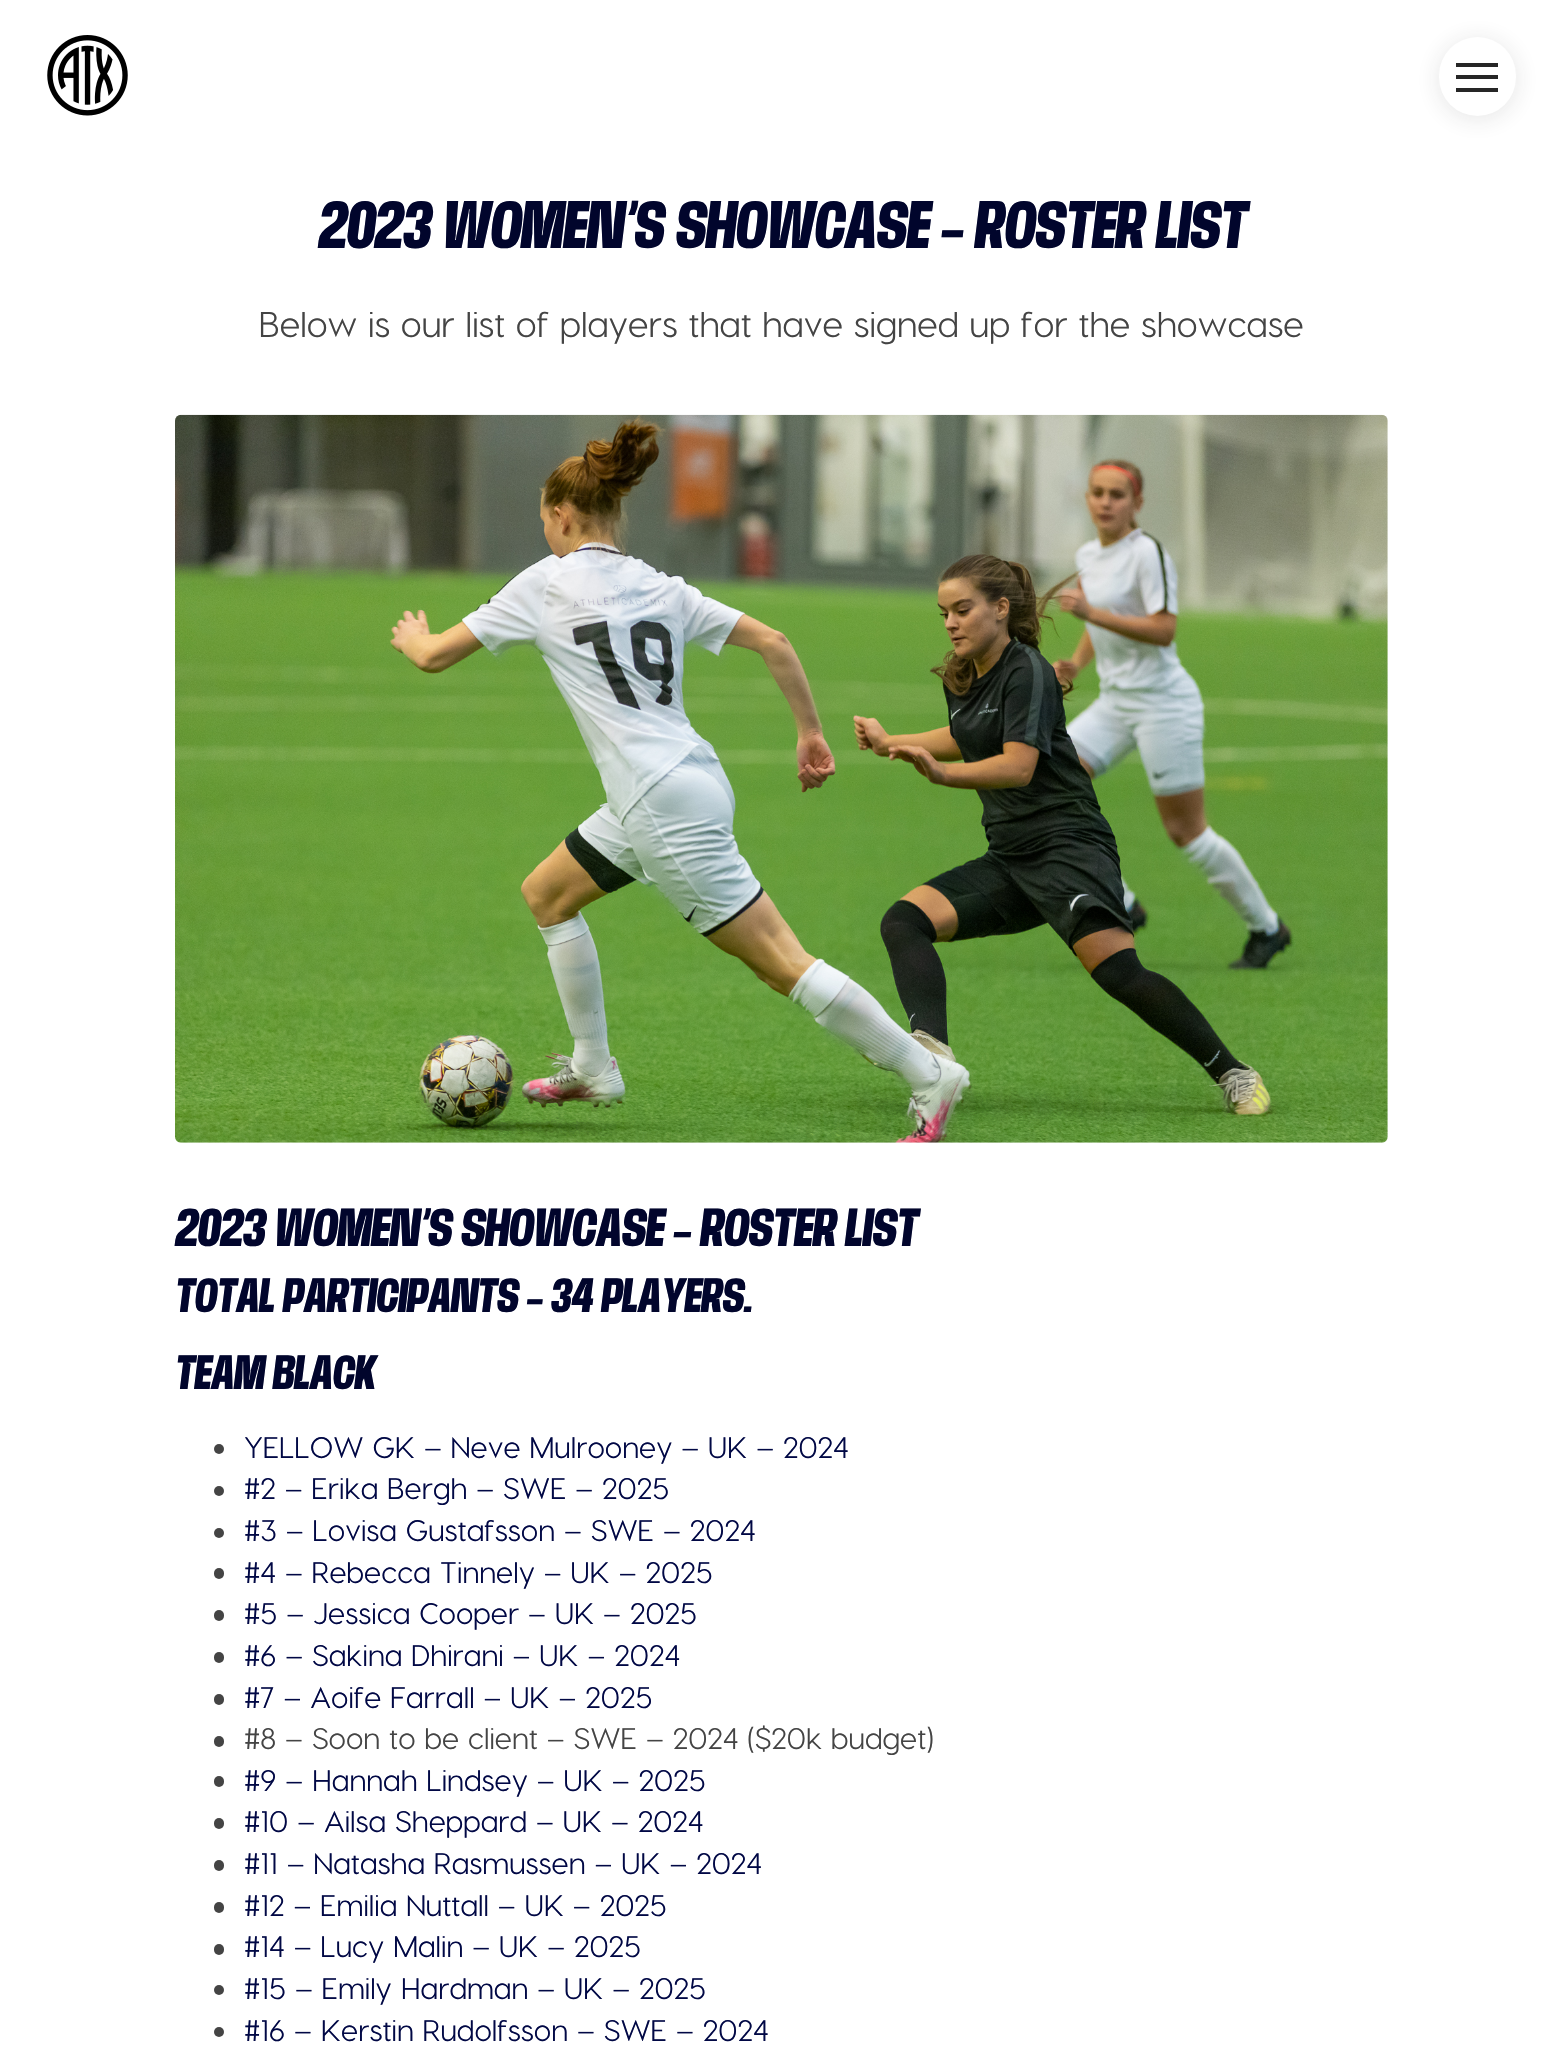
void draw(SkCanvas* canvas) {
    SkPaint paint;
    paint.setAntiAlias(true);
    auto face = [&](const char* family, int weight, float size, bool italic = false) {
        SkFontStyle style(weight, SkFontStyle::kNormal_Width,
            italic ? SkFontStyle::kItalic_Slant : SkFontStyle::kUpright_Slant);
        SkFont result(fontMgr->matchFamilyStyle(family, style), size);
        result.setSubpixel(true);
        return result;
    };
    auto write = [&](const char* s, float x, float y, const SkFont& font, SkColor color) {
        SkPaint ink(SkColor4f::FromColor(color));
        ink.setAntiAlias(true);
        canvas->drawString(s, x, y, font, ink);
    };
    auto block = [&](float x, float y, float w, float h, SkColor color) {
        SkPaint ink(SkColor4f::FromColor(color));
        ink.setAntiAlias(true);
        canvas->drawRect(SkRect::MakeXYWH(x, y, w, h), ink);
    };
    auto card = [&](float x, float y, float w, float h, float radius, SkColor color) {
        SkPaint ink(SkColor4f::FromColor(color));
        ink.setAntiAlias(true);
        canvas->drawRoundRect(SkRect::MakeXYWH(x, y, w, h), radius, radius, ink);
    };
    auto paste = [&](const char* path, float x, float y, float w, float h) {
        auto image = SkImages::DeferredFromEncodedData(SkData::MakeFromFileName(path));
        canvas->drawImageRect(image, SkRect::MakeXYWH(x, y, w, h), SkSamplingOptions());
    };
    canvas->clear(SK_ColorWHITE);
    paste("pic1.png", 47, 35, 81, 81);
    paint.setColor(SkColorSetARGB(31, 38, 38, 38));
    paint.setMaskFilter(SkMaskFilter::MakeBlur(kNormal_SkBlurStyle, 12));
    canvas->drawRoundRect(SkRect::MakeXYWH(1439, 40, 77, 79), 38.5f, 38.5f, paint);
    paint.setMaskFilter(nullptr);
    card(1439, 37, 77, 79, 38.5f, SK_ColorWHITE);
    block(1456, 75, 42, 4, SkColorSetRGB(38, 38, 38));
    block(1456, 63, 42, 4, SkColorSetRGB(38, 38, 38));
    block(1456, 88, 42, 4, SkColorSetRGB(38, 38, 38));
    auto kFont1 = face("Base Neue", 800, 59.5f, true);
    write("2023 WOMEN’S SHOWCASE – ROSTER LIST", 317, 248, kFont1, SkColorSetRGB(1, 5, 44));
    auto kFont2 = face("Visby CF", 500, 35.7f);
    write("Below is our list of players that have signed up for the showcase", 259, 337, kFont2, SkColorSetRGB(68, 68, 68));
    paste("pic2.png", 175, 414, 1213, 729);
    auto kFont3 = face("Base Neue", 800, 47.6f, true);
    write("2023 WOMEN’S SHOWCASE – ROSTER LIST", 174, 1246, kFont3, SkColorSetRGB(1, 5, 44));
    auto kFont4 = face("Base Neue", 800, 42.8f, true);
    write("TOTAL PARTICIPANTS – 34 PLAYERS.", 174, 1312, kFont4, SkColorSetRGB(1, 5, 44));
    write("TEAM BLACK", 174, 1389, kFont4, SkColorSetRGB(1, 5, 44));
    paint.setColor(SkColorSetRGB(68, 68, 68));
    canvas->drawCircle(219, 1449, 5, paint);
    auto kFont5 = face("Visby CF", 500, 29.75f);
    write("YELLOW GK – Neve Mulrooney – UK – 2024", 244, 1458, kFont5, SkColorSetRGB(1, 8, 69));
    canvas->drawCircle(219, 1491, 5, paint);
    write("#2 – Erika Bergh – SWE – 2025", 244, 1499, kFont5, SkColorSetRGB(1, 8, 69));
    canvas->drawCircle(219, 1533, 5, paint);
    write("#3 – Lovisa Gustafsson – SWE – 2024", 244, 1541, kFont5, SkColorSetRGB(1, 8, 69));
    card(214, 1568, 10, 11, 5, SkColorSetRGB(68, 68, 68));
    write("#4 – Rebecca Tinnely – UK – 2025", 244, 1583, kFont5, SkColorSetRGB(1, 8, 69));
    card(214, 1610, 10, 11, 5, SkColorSetRGB(68, 68, 68));
    write("#5 – Jessica Cooper – UK – 2025", 244, 1624, kFont5, SkColorSetRGB(1, 8, 69));
    card(214, 1652, 10, 11, 5, SkColorSetRGB(68, 68, 68));
    write("#6 – Sakina Dhirani – UK – 2024", 244, 1666, kFont5, SkColorSetRGB(1, 8, 69));
    card(214, 1694, 10, 11, 5, SkColorSetRGB(68, 68, 68));
    write("#7 – Aoife Farrall – UK – 2025", 244, 1708, kFont5, SkColorSetRGB(1, 8, 69));
    card(214, 1736, 10, 11, 5, SkColorSetRGB(68, 68, 68));
    write("#8 – Soon to be client – SWE – 2024 ($20k budget)", 244, 1749, kFont5, SkColorSetRGB(68, 68, 68));
    card(214, 1776, 10, 11, 5, SkColorSetRGB(68, 68, 68));
    write("#9 – Hannah Lindsey – UK – 2025", 244, 1791, kFont5, SkColorSetRGB(1, 8, 69));
    card(214, 1818, 10, 11, 5, SkColorSetRGB(68, 68, 68));
    write("#10 – Ailsa Sheppard – UK – 2024", 244, 1832, kFont5, SkColorSetRGB(1, 8, 69));
    card(214, 1860, 10, 11, 5, SkColorSetRGB(68, 68, 68));
    write("#11 – Natasha Rasmussen – UK – 2024", 244, 1874, kFont5, SkColorSetRGB(1, 8, 69));
    card(214, 1902, 10, 11, 5, SkColorSetRGB(68, 68, 68));
    write("#12 – Emilia Nuttall – UK – 2025", 244, 1916, kFont5, SkColorSetRGB(1, 8, 69));
    card(214, 1944, 10, 11, 5, SkColorSetRGB(68, 68, 68));
    write("#14 – Lucy Malin – UK – 2025", 244, 1957, kFont5, SkColorSetRGB(1, 8, 69));
    canvas->drawCircle(219, 1990, 5, paint);
    write("#15 – Emily Hardman – UK – 2025", 244, 1999, kFont5, SkColorSetRGB(1, 8, 69));
    canvas->drawCircle(219, 2032, 5, paint);
    write("#16 – Kerstin Rudolfsson – SWE – 2024", 244, 2041, kFont5, SkColorSetRGB(1, 8, 69));
}
